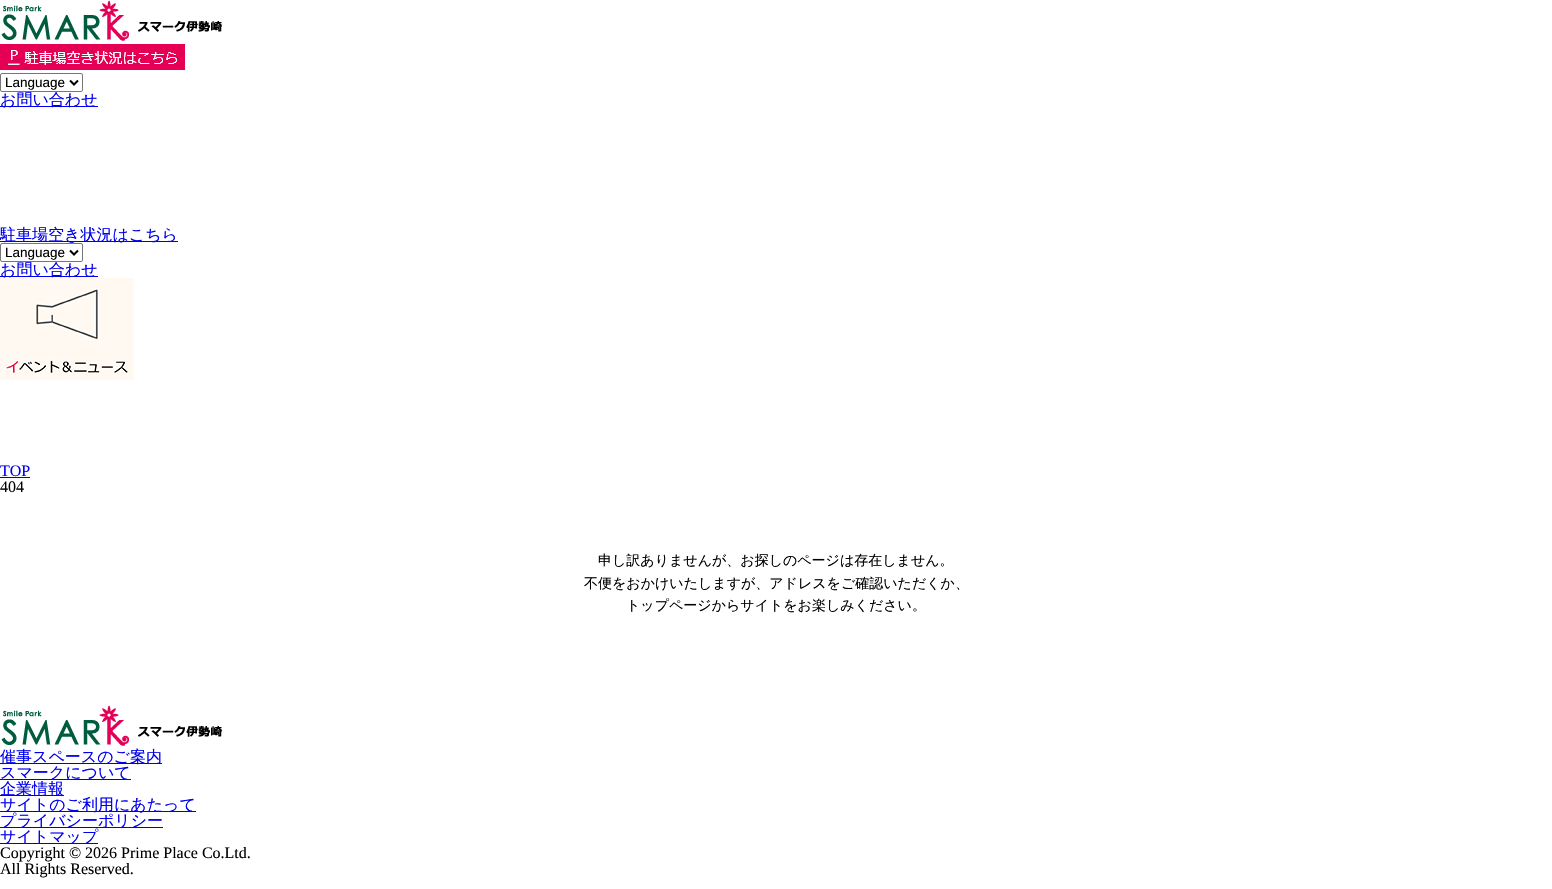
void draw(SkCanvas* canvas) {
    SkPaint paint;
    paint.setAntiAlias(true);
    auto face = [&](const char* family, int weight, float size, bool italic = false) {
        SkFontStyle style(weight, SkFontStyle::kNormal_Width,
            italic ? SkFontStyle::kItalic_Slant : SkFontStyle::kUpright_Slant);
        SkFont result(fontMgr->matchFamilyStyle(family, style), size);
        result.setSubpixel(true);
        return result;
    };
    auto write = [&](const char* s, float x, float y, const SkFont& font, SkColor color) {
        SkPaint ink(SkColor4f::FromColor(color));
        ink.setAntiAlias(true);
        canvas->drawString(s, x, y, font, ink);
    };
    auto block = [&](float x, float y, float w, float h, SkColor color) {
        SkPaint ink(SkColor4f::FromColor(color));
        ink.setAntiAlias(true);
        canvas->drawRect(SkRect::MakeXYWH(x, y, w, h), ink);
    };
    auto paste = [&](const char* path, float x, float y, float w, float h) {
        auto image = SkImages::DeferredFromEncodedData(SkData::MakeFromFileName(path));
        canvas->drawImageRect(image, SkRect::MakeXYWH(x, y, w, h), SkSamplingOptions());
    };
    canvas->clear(SK_ColorWHITE);
    paste("pic1.png", 1, 0, 221, 41);
    paste("pic2.png", 0, 44, 185, 26);
    paint.setStyle(SkPaint::kStroke_Style);
    paint.setStrokeWidth(1);
    paint.setColor(SkColorSetRGB(118, 118, 118));
    canvas->drawRoundRect(SkRect::MakeXYWH(0.5f, 73.5f, 82, 18), 1.5f, 1.5f, paint);
    paint.setStrokeWidth(2);
    paint.setColor(SK_ColorBLACK);
    canvas->drawPath(SkPathBuilder().moveTo(70, 80.5f).lineTo(74, 84.5f).lineTo(78, 80.5f).detach(), paint);
    auto kFont1 = face("Liberation Sans", 400, 13.5f);
    write("Language", 5, 87, kFont1, SK_ColorBLACK);
    block(0, 106, 98, 1, SkColorSetRGB(0, 0, 238));
    auto kFont2 = face("WenQuanYi Zen Hei", 500, 16);
    write("お問い合わせ", 0, 105, kFont2, SkColorSetRGB(0, 0, 238));
    block(0, 241, 178, 1, SkColorSetRGB(0, 0, 238));
    write("駐車場空き状況はこちら", 0, 240, kFont2, SkColorSetRGB(0, 0, 238));
    paint.setStrokeWidth(1);
    paint.setColor(SkColorSetRGB(118, 118, 118));
    canvas->drawRoundRect(SkRect::MakeXYWH(0.5f, 243.5f, 82, 18), 1.5f, 1.5f, paint);
    paint.setStrokeWidth(2);
    paint.setColor(SK_ColorBLACK);
    canvas->drawPath(SkPathBuilder().moveTo(70, 250.5f).lineTo(74, 254.5f).lineTo(78, 250.5f).detach(), paint);
    write("Language", 5, 257, kFont1, SK_ColorBLACK);
    block(0, 276, 98, 1, SkColorSetRGB(0, 0, 238));
    write("お問い合わせ", 0, 275, kFont2, SkColorSetRGB(0, 0, 238));
    paste("pic3.png", 0, 278, 134, 102);
    auto kFont3 = face("Liberation Serif", 400, 16);
    write("TOP", 0, 476, kFont3, SkColorSetRGB(0, 0, 238));
    block(0, 477, 30, 1, SkColorSetRGB(0, 0, 238));
    write("404", 0, 492, kFont3, SK_ColorBLACK);
    auto kFont4 = face("WenQuanYi Zen Hei", 500, 14);
    write("申し訳ありませんが、お探しのページは存在しません。", 598, 565, kFont4, SK_ColorBLACK);
    write("不便をおかけいたしますが、アドレスをご確認いただくか、", 584, 588, kFont4, SK_ColorBLACK);
    write("トップページからサイトをお楽しみください。", 626, 610, kFont4, SK_ColorBLACK);
    paste("pic1.png", 1, 705, 221, 41);
    block(0, 763, 162, 1, SkColorSetRGB(0, 0, 238));
    write("催事スペースのご案内", 0, 762, kFont2, SkColorSetRGB(0, 0, 238));
    block(0, 779, 131, 1, SkColorSetRGB(0, 0, 238));
    write("スマークについて", 0, 778, kFont2, SkColorSetRGB(0, 0, 238));
    block(0, 795, 64, 1, SkColorSetRGB(0, 0, 238));
    write("企業情報", 0, 794, kFont2, SkColorSetRGB(0, 0, 238));
    block(0, 811, 196, 1, SkColorSetRGB(0, 0, 238));
    write("サイトのご利用にあたって", 0, 810, kFont2, SkColorSetRGB(0, 0, 238));
    block(0, 827, 163, 1, SkColorSetRGB(0, 0, 238));
    write("プライバシーポリシー", 0, 826, kFont2, SkColorSetRGB(0, 0, 238));
    block(0, 843, 98, 1, SkColorSetRGB(0, 0, 238));
    write("サイトマップ", 0, 842, kFont2, SkColorSetRGB(0, 0, 238));
    write("Copyright © 2026 Prime Place Co.Ltd.", 0, 858, kFont3, SK_ColorBLACK);
    write("All Rights Reserved.", 0, 874, kFont3, SK_ColorBLACK);
}
